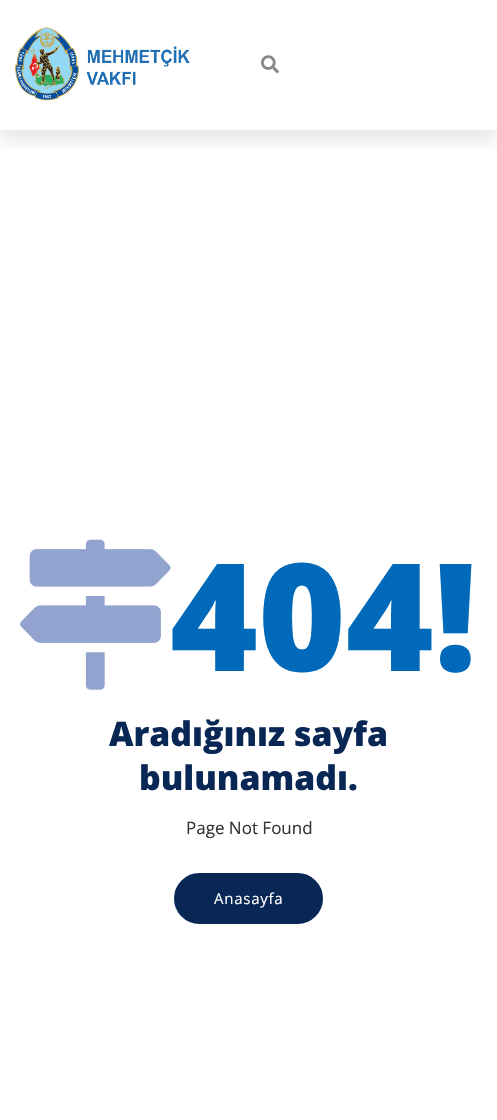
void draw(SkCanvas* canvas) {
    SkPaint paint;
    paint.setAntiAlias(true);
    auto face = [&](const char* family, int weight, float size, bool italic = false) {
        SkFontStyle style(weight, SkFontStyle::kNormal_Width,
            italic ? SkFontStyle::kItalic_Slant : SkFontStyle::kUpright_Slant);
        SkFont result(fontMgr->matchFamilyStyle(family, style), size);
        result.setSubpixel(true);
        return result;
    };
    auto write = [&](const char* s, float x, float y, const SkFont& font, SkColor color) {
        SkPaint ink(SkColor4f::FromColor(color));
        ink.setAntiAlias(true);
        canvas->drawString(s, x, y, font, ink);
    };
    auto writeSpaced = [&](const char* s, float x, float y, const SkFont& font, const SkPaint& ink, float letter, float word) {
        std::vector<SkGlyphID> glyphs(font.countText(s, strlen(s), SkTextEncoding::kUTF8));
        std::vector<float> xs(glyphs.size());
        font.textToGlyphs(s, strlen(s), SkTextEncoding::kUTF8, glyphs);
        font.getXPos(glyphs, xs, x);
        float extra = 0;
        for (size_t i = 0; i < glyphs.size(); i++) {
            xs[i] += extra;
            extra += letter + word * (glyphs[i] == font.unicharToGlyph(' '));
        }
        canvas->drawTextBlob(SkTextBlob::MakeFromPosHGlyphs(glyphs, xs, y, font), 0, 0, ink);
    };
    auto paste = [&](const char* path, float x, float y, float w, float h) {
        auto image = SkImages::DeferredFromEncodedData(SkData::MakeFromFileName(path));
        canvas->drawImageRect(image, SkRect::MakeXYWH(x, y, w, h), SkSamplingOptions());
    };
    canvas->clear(SK_ColorWHITE);
    canvas->save();
    canvas->clipRect(SkRect::MakeXYWH(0, 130, 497, 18));
    paint.setColor(SkColorSetARGB(26, 0, 0, 0));
    paint.setMaskFilter(SkMaskFilter::MakeBlur(kNormal_SkBlurStyle, 10));
    canvas->drawRect(SkRect::MakeXYWH(0, 10, 497, 130), paint);
    paint.setMaskFilter(nullptr);
    canvas->restore();
    paste("pic1.png", 15, 27, 175, 74);
    paste("pic2.png", 261, 55, 18, 19);
    paste("pic3.png", 20, 539, 151, 151);
    auto kFont1 = face("Open Sans", 800, 150);
    write("404!", 170, 671, kFont1, SkColorSetRGB(0, 105, 185));
    auto kFont2 = face("Open Sans", 800, 33.75f);
    write("Aradığınız sayfa", 109, 746, kFont2, SkColorSetRGB(9, 39, 85));
    write("bulunamadı.", 139, 790, kFont2, SkColorSetRGB(9, 39, 85));
    auto kFont3 = face("Open Sans", 400, 17);
    write("Page Not Found", 186, 834, kFont3, SkColorSetRGB(51, 51, 51));
    paint.setColor(SkColorSetRGB(9, 39, 85));
    canvas->drawRoundRect(SkRect::MakeXYWH(175, 874, 147, 49), 24.5f, 24.5f, paint);
    paint.setStyle(SkPaint::kStroke_Style);
    paint.setStrokeWidth(2);
    canvas->drawRoundRect(SkRect::MakeXYWH(175, 874, 147, 49), 24.5f, 24.5f, paint);
    auto kFont4 = face("Open Sans", 400, 15);
    paint.setStyle(SkPaint::kFill_Style);
    paint.setColor(SK_ColorWHITE);
    writeSpaced("Anasayfa", 214, 904, kFont4, paint, 0.75f, 0);
}
